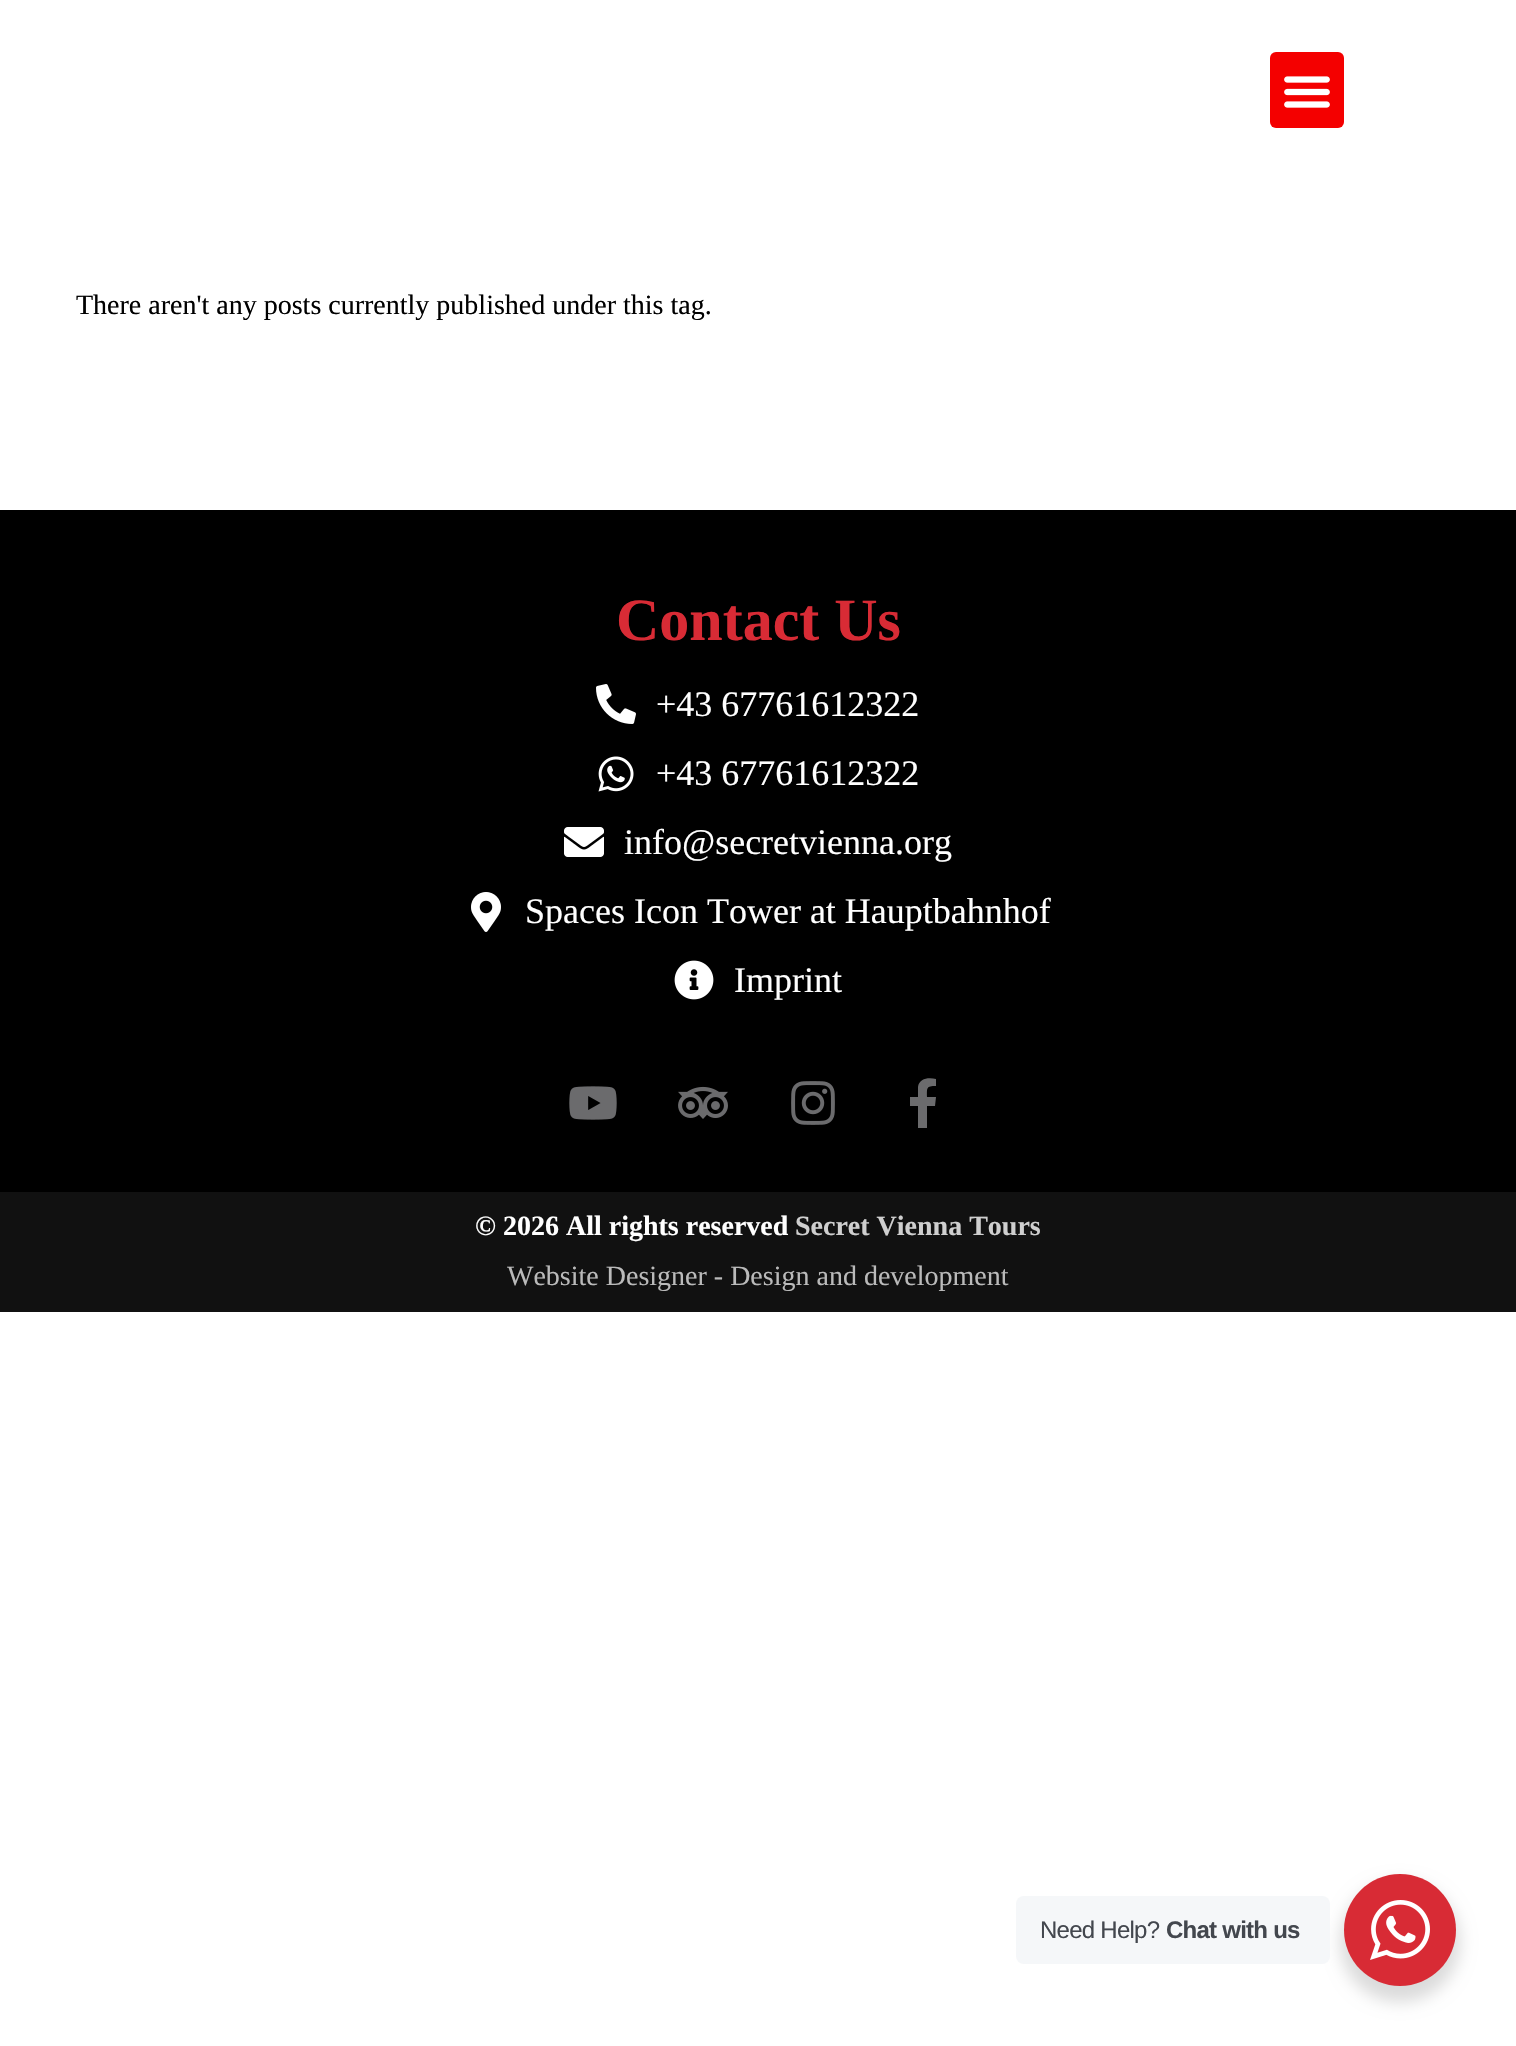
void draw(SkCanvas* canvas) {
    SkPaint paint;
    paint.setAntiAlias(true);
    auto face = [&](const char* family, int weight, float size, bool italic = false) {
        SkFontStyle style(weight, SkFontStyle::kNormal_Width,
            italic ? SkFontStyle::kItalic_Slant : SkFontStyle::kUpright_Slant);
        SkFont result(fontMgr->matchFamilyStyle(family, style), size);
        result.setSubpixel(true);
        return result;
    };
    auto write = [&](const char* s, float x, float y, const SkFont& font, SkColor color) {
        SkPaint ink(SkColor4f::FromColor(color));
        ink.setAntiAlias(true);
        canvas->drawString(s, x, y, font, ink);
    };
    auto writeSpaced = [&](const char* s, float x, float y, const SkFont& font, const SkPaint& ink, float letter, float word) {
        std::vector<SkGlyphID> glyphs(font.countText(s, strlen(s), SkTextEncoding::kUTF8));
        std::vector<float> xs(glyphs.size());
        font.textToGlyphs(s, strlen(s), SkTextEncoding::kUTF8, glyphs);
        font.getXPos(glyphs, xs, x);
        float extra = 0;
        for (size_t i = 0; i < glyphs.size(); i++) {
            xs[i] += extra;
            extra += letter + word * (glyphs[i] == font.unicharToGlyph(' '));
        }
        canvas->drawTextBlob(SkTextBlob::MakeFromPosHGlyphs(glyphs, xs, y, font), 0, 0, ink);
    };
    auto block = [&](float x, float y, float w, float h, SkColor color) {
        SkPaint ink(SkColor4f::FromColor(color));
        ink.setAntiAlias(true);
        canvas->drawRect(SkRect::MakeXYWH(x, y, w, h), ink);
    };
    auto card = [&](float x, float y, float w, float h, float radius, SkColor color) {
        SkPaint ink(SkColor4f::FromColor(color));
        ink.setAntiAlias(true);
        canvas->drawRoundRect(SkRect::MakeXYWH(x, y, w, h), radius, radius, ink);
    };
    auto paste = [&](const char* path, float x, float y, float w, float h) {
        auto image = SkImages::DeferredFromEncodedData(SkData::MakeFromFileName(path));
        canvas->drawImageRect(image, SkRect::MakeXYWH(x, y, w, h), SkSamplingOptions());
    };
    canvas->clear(SK_ColorWHITE);
    card(1270, 52, 74, 76, 6, SkColorSetRGB(244, 0, 0));
    paste("pic1.png", 1284, 76, 46, 32);
    auto kFont1 = face("Liberation Serif", 400, 28);
    write("There aren't any posts currently published under this tag.", 76, 314, kFont1, SK_ColorBLACK);
    block(0, 510, 1516, 682, SK_ColorBLACK);
    auto kFont2 = face("Liberation Serif", 700, 60);
    write("Contact Us", 616, 640, kFont2, SkColorSetRGB(216, 43, 53));
    paste("pic2.png", 596, 684, 40, 40);
    auto kFont3 = face("Liberation Serif", 400, 36);
    write("+43 67761612322", 656, 716, kFont3, SK_ColorWHITE);
    paste("pic3.png", 598, 756, 36, 36);
    write("+43 67761612322", 656, 785, kFont3, SK_ColorWHITE);
    paste("pic4.png", 564, 827, 40, 30);
    write("info@secretvienna.org", 624, 854, kFont3, SK_ColorWHITE);
    paste("pic5.png", 471, 892, 30, 40);
    write("Spaces Icon Tower at Hauptbahnhof", 525, 923, kFont3, SK_ColorWHITE);
    paste("pic6.png", 674, 960, 40, 40);
    write("Imprint", 734, 992, kFont3, SK_ColorWHITE);
    paste("pic7.png", 569, 1086, 48, 34);
    paste("pic8.png", 678, 1086, 50, 33);
    paste("pic9.png", 791, 1081, 44, 44);
    paint.setColor(SkColorSetRGB(107, 107, 109));
    canvas->drawPath(SkPathBuilder().moveTo(935, 1106).lineTo(936, 1097).lineTo(927, 1097).cubicTo(927, 1088, 926, 1086, 936, 1086).lineTo(936, 1079).cubicTo(929, 1077, 919, 1078, 918, 1087).lineTo(918, 1097).lineTo(910, 1097).lineTo(910, 1106).lineTo(918, 1106).lineTo(918, 1128).lineTo(927, 1128).lineTo(927, 1106).close().detach(), paint);
    block(0, 1192, 1516, 120, SkColorSetRGB(17, 17, 17));
    auto kFont4 = face("Liberation Serif", 700, 28);
    write("© 2026 All rights reserved", 475, 1235, kFont4, SK_ColorWHITE);
    write("Secret Vienna Tours", 795, 1235, kFont4, SkColorSetRGB(207, 207, 207));
    write("Website Designer - Design and development", 507, 1285, kFont1, SkColorSetRGB(186, 186, 186));
    paint.setColor(SkColorSetARGB(36, 0, 0, 0));
    paint.setMaskFilter(SkMaskFilter::MakeBlur(kNormal_SkBlurStyle, 8));
    canvas->drawRoundRect(SkRect::MakeXYWH(1340, 1882, 120, 120), 60, 60, paint);
    paint.setMaskFilter(nullptr);
    card(1016, 1896, 314, 68, 8, SkColorSetRGB(245, 247, 249));
    auto kFont5 = face("Liberation Sans", 400, 24);
    paint.setColor(SkColorSetRGB(67, 71, 78));
    writeSpaced("Need Help?", 1040, 1938, kFont5, paint, -0.75f, 0);
    auto kFont6 = face("Liberation Sans", 700, 24);
    writeSpaced("Chat with us", 1166, 1938, kFont6, paint, -0.75f, 0);
    paint.setColor(SkColorSetRGB(216, 43, 53));
    canvas->drawCircle(1400, 1930, 56, paint);
    paste("pic10.png", 1370, 1900, 60, 60);
}
